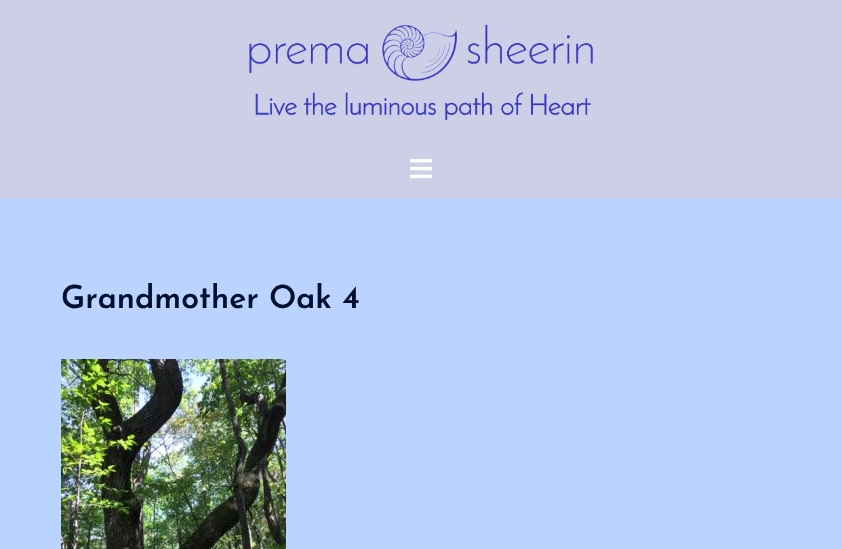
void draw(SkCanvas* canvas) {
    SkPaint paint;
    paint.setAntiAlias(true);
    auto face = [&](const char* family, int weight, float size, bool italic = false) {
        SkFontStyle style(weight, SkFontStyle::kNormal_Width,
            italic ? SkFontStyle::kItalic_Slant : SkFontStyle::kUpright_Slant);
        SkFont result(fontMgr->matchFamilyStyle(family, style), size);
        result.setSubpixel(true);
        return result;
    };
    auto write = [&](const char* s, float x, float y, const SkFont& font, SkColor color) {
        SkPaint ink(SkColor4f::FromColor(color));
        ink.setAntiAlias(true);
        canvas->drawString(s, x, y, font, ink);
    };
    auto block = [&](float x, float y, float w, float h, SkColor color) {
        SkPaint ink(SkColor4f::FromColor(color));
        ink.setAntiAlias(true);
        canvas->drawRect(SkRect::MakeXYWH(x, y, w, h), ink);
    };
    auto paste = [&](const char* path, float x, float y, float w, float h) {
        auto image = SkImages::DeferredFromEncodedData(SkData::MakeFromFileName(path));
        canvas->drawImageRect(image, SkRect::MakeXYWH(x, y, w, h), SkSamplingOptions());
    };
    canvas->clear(SkColorSetRGB(186, 211, 255));
    block(0, 0, 842, 198, SkColorSetRGB(204, 207, 229));
    paste("pic1.png", 249, 24, 344, 96);
    paste("pic2.png", 410, 159, 22, 20);
    auto kFont1 = face("Josefin Sans", 600, 32);
    write("Grandmother Oak 4", 61, 308, kFont1, SkColorSetRGB(0, 16, 46));
    paste("pic3.png", 61, 359, 225, 190);
}
